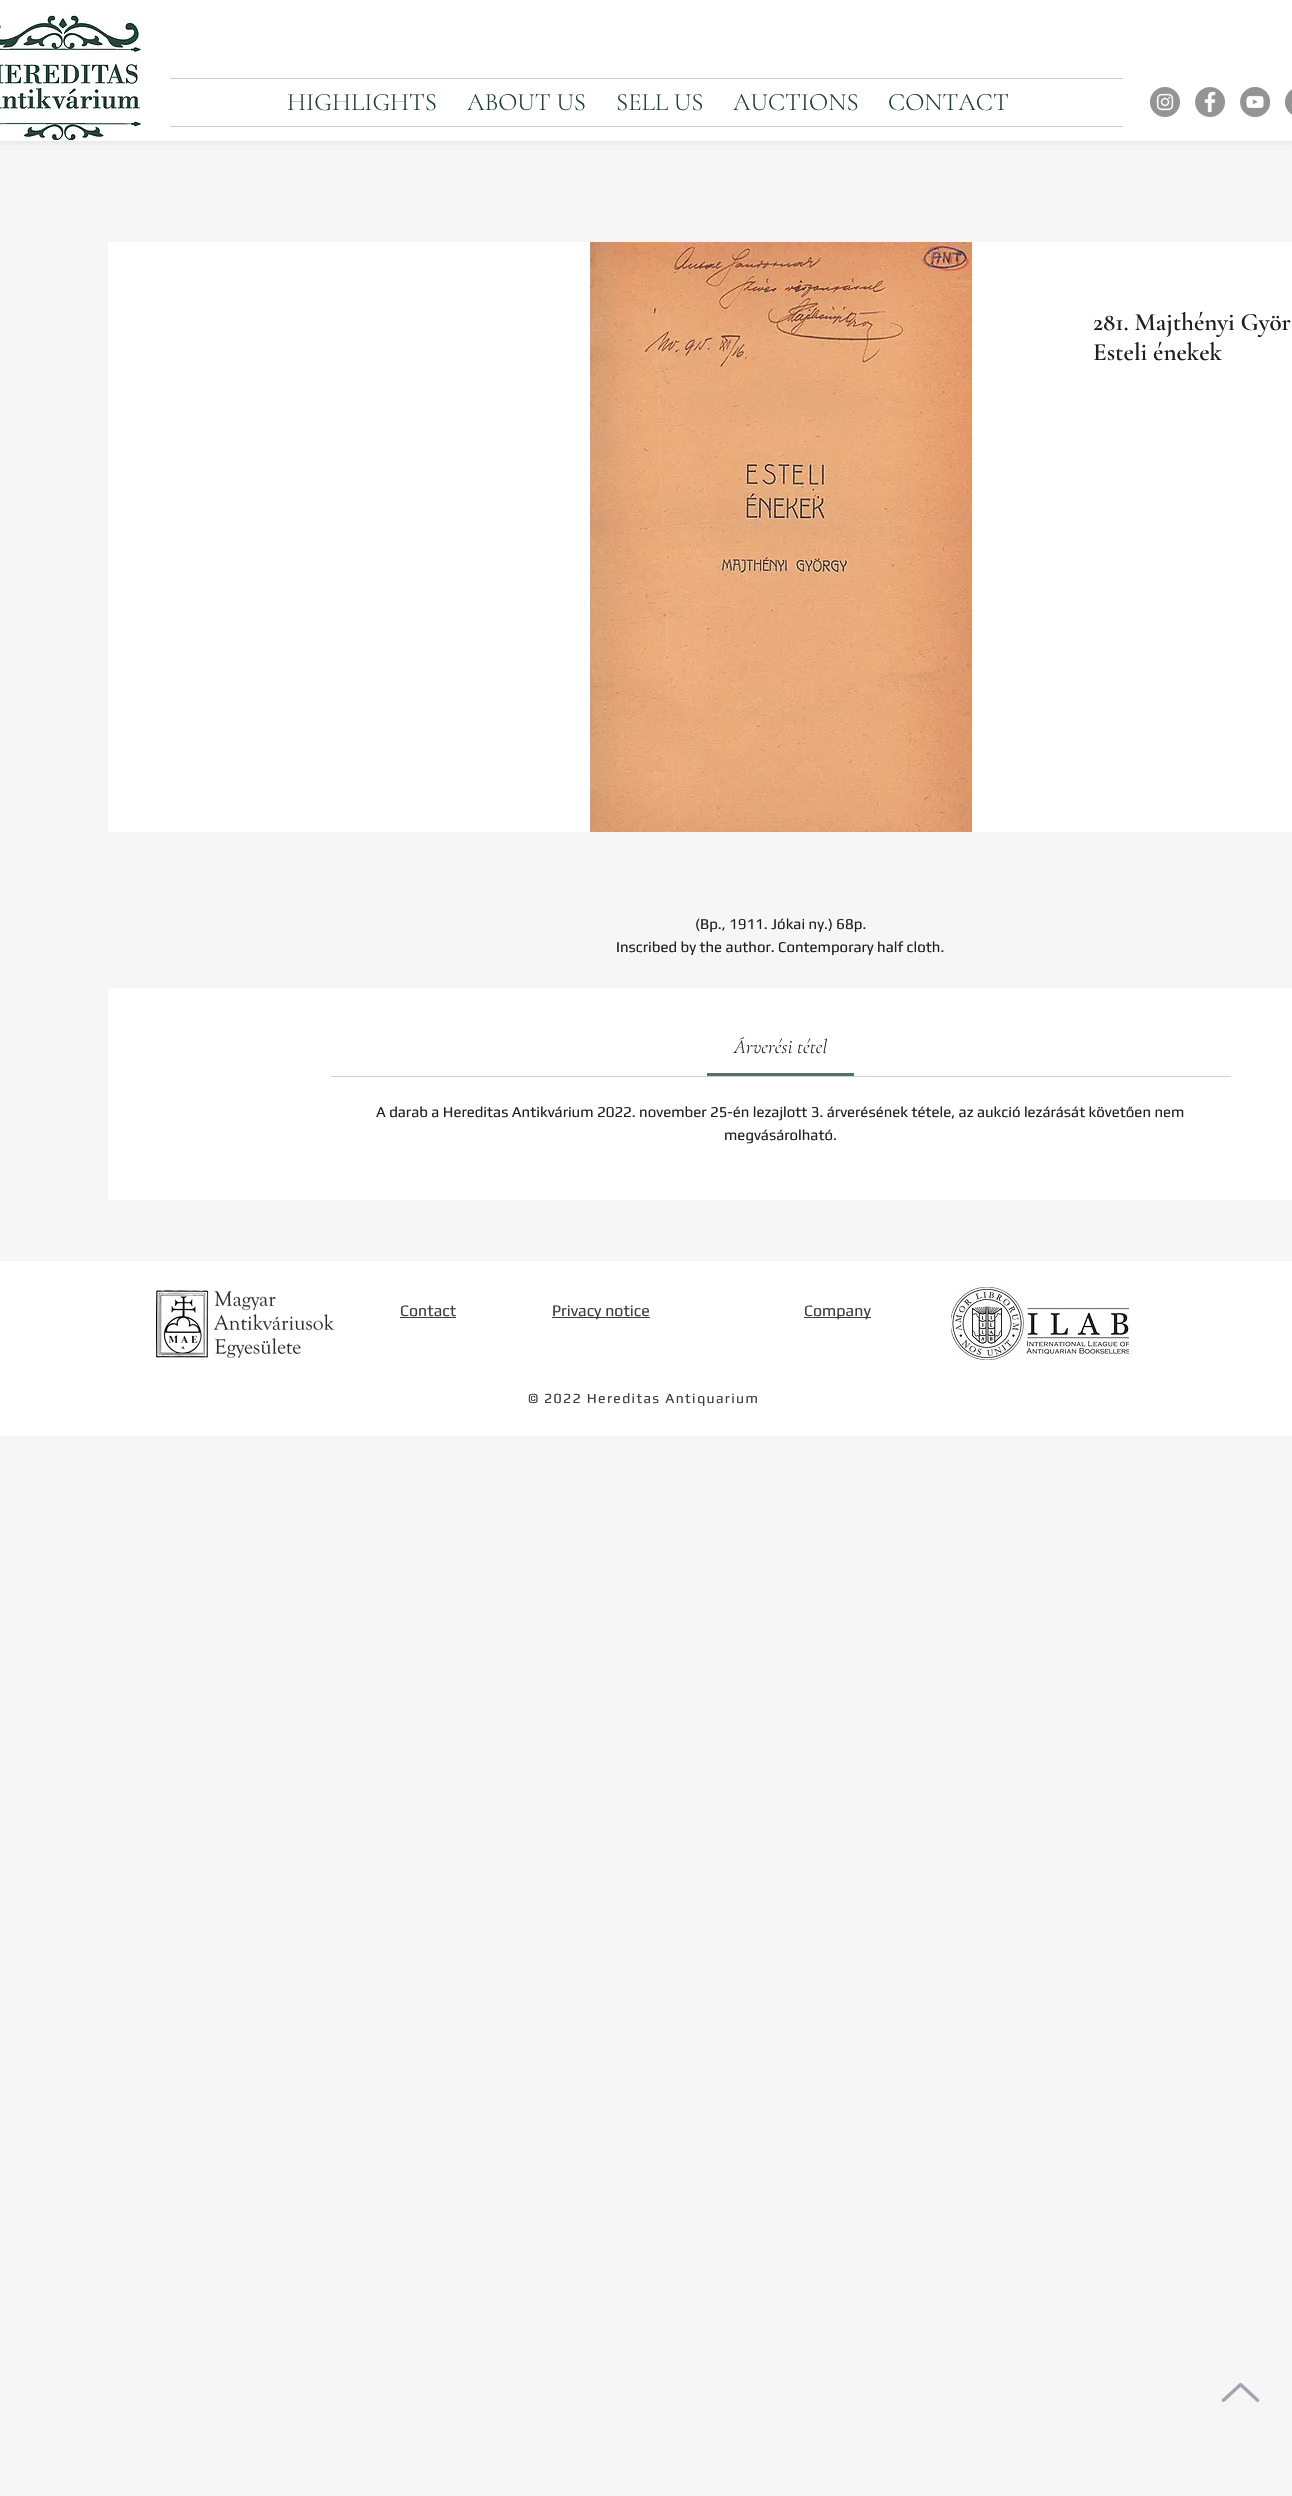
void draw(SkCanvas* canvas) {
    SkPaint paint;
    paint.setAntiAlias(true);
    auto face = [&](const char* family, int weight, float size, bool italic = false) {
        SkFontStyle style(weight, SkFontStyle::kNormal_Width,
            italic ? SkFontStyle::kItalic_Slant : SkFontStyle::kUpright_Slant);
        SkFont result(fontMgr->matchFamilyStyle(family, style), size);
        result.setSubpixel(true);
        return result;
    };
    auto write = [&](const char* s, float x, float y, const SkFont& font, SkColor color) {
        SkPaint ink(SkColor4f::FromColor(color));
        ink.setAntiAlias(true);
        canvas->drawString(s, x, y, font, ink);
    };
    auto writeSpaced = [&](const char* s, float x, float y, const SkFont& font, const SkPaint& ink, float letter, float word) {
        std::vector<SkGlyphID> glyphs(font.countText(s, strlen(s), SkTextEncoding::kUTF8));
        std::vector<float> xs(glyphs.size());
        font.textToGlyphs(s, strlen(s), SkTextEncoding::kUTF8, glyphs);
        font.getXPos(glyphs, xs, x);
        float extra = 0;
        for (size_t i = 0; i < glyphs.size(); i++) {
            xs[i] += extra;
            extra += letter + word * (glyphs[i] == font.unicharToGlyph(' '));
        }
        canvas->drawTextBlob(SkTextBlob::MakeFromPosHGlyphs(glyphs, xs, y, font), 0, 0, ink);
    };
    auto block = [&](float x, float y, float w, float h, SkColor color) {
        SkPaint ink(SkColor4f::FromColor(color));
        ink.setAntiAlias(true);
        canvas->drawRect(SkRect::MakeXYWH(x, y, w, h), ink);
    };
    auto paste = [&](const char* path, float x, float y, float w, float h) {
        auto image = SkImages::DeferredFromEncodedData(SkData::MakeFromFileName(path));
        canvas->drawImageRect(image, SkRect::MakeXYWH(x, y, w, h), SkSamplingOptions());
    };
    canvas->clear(SkColorSetRGB(246, 246, 246));
    paint.setColor(SkColorSetARGB(13, 0, 0, 0));
    paint.setMaskFilter(SkMaskFilter::MakeBlur(kNormal_SkBlurStyle, 2.5f));
    canvas->drawRect(SkRect::MakeXYWH(-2, -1, 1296, 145), paint);
    paint.setMaskFilter(nullptr);
    block(0, 0, 1292, 141, SK_ColorWHITE);
    paste("pic1.png", 0, 15, 141, 126);
    block(170, 78, 953, 1, SkColorSetRGB(202, 202, 202));
    block(170, 126, 953, 1, SkColorSetRGB(202, 202, 202));
    auto kFont1 = face("Cormorant Garamond", 300, 25);
    write("HIGHLIGHTS", 287, 110, kFont1, SkColorSetRGB(29, 65, 48));
    write("ABOUT US", 467, 110, kFont1, SkColorSetRGB(29, 65, 48));
    write("SELL US", 616, 110, kFont1, SkColorSetRGB(29, 65, 48));
    write("AUCTIONS", 733, 110, kFont1, SkColorSetRGB(29, 65, 48));
    write("CONTACT", 888, 110, kFont1, SkColorSetRGB(29, 65, 48));
    paste("pic2.png", 1150, 87, 30, 30);
    paste("pic3.png", 1195, 87, 30, 30);
    paste("pic4.png", 1240, 87, 30, 30);
    paste("pic5.png", 1285, 89, 7, 26);
    block(108, 242, 1184, 590, SK_ColorWHITE);
    paste("pic6.png", 590, 242, 382, 590);
    auto kFont2 = face("Cormorant Garamond", 600, 25);
    write("281. Majthényi Györ", 1093, 330, kFont2, SkColorSetRGB(31, 31, 31));
    write("Esteli énekek", 1093, 360, kFont2, SkColorSetRGB(31, 31, 31));
    auto kFont3 = face("Play", 400, 15);
    write("(Bp., 1911. Jókai ny.) 68p.", 695, 929, kFont3, SkColorSetRGB(31, 31, 31));
    write("Inscribed by the author. Contemporary half cloth.", 616, 952, kFont3, SkColorSetRGB(31, 31, 31));
    block(108, 988, 1184, 212, SK_ColorWHITE);
    block(331, 1076, 900, 1, SkColorSetRGB(210, 210, 210));
    block(707, 1073, 147, 3, SkColorSetRGB(81, 113, 98));
    auto kFont4 = face("Cormorant Garamond", 300, 20, true);
    write("Árverési tétel", 734, 1053, kFont4, SkColorSetRGB(31, 31, 31));
    write("A darab a Hereditas Antikvárium 2022. november 25-én lezajlott 3. árverésének tétele, az aukció lezárását követően nem", 376, 1117, kFont3, SkColorSetRGB(31, 31, 31));
    write("megvásárolható.", 724, 1140, kFont3, SkColorSetRGB(31, 31, 31));
    block(0, 1261, 1292, 175, SK_ColorWHITE);
    paste("pic7.png", 156, 1290, 179, 68);
    auto kFont5 = face("Play", 400, 16);
    write("Contact", 400, 1316, kFont5, SkColorSetRGB(61, 61, 61));
    block(400, 1317, 56, 1, SkColorSetRGB(61, 61, 61));
    block(552, 1317, 98, 1, SkColorSetRGB(61, 61, 61));
    write("Privacy notice", 552, 1316, kFont5, SkColorSetRGB(61, 61, 61));
    block(804, 1317, 67, 1, SkColorSetRGB(61, 61, 61));
    write("Company", 804, 1316, kFont5, SkColorSetRGB(61, 61, 61));
    paste("pic8.png", 951, 1287, 178, 73);
    auto kFont6 = face("Play", 400, 14);
    paint.setColor(SkColorSetRGB(61, 61, 61));
    writeSpaced("© 2022 Hereditas Antiquarium", 528, 1403, kFont6, paint, 1.4f, 0);
    paste("pic9.png", 1221, 2383, 39, 19);
}
